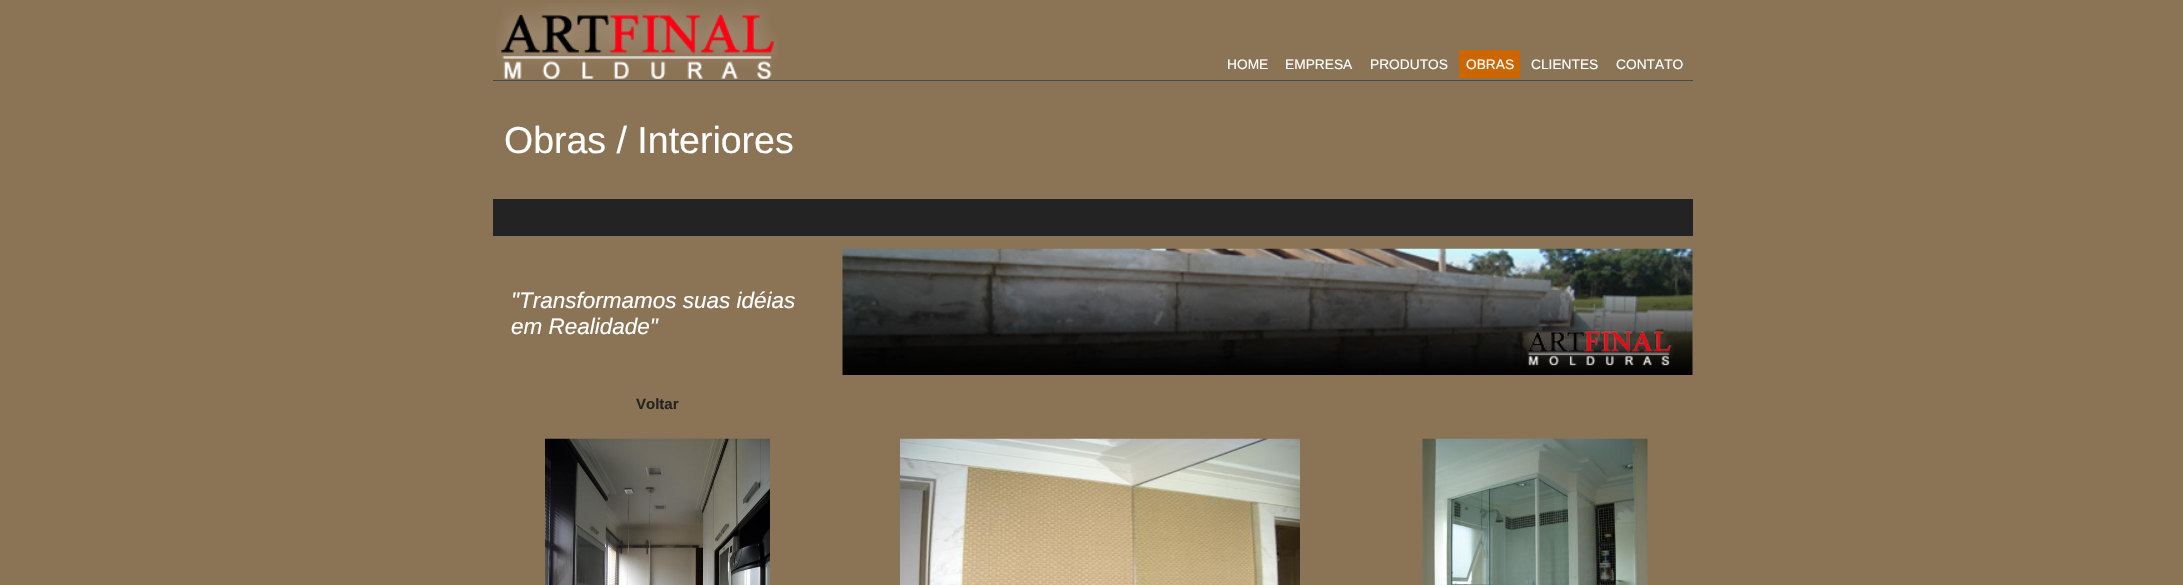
void draw(SkCanvas* canvas) {
    SkPaint paint;
    paint.setAntiAlias(true);
    auto face = [&](const char* family, int weight, float size, bool italic = false) {
        SkFontStyle style(weight, SkFontStyle::kNormal_Width,
            italic ? SkFontStyle::kItalic_Slant : SkFontStyle::kUpright_Slant);
        SkFont result(fontMgr->matchFamilyStyle(family, style), size);
        result.setSubpixel(true);
        return result;
    };
    auto write = [&](const char* s, float x, float y, const SkFont& font, SkColor color) {
        SkPaint ink(SkColor4f::FromColor(color));
        ink.setAntiAlias(true);
        canvas->drawString(s, x, y, font, ink);
    };
    auto block = [&](float x, float y, float w, float h, SkColor color) {
        SkPaint ink(SkColor4f::FromColor(color));
        ink.setAntiAlias(true);
        canvas->drawRect(SkRect::MakeXYWH(x, y, w, h), ink);
    };
    auto paste = [&](const char* path, float x, float y, float w, float h) {
        auto image = SkImages::DeferredFromEncodedData(SkData::MakeFromFileName(path));
        canvas->drawImageRect(image, SkRect::MakeXYWH(x, y, w, h), SkSamplingOptions());
    };
    canvas->clear(SkColorSetRGB(139, 115, 85));
    block(493, 80, 1200, 1, SkColorSetRGB(72, 72, 72));
    paste("pic1.png", 496, 3, 282, 76);
    auto kFont1 = face("Liberation Sans", 400, 13.75f);
    write("HOME", 1227, 69, kFont1, SK_ColorWHITE);
    write("EMPRESA", 1285, 69, kFont1, SK_ColorWHITE);
    write("PRODUTOS", 1370, 69, kFont1, SK_ColorWHITE);
    block(1459, 50, 61, 28, SkColorSetRGB(204, 102, 0));
    write("OBRAS", 1466, 69, kFont1, SK_ColorWHITE);
    write("CLIENTES", 1531, 69, kFont1, SK_ColorWHITE);
    write("CONTATO", 1616, 69, kFont1, SK_ColorWHITE);
    auto kFont2 = face("Liberation Sans", 400, 37.5f);
    write("Obras / Interiores", 504, 153, kFont2, SK_ColorWHITE);
    block(493, 199, 1200, 37, SkColorSetRGB(35, 35, 35));
    auto kFont3 = face("Liberation Sans", 400, 22.5f, true);
    write("\"Transformamos suas idéias", 511, 308, kFont3, SK_ColorWHITE);
    write("em Realidade\"", 511, 334, kFont3, SK_ColorWHITE);
    paste("pic2.png", 842, 248, 851, 127);
    auto kFont4 = face("Liberation Sans", 700, 15);
    write("Voltar", 636, 409, kFont4, SkColorSetRGB(35, 35, 35));
    paste("pic3.png", 545, 438, 225, 147);
    paste("pic4.png", 900, 438, 400, 147);
    paste("pic5.png", 1422, 438, 226, 147);
}
